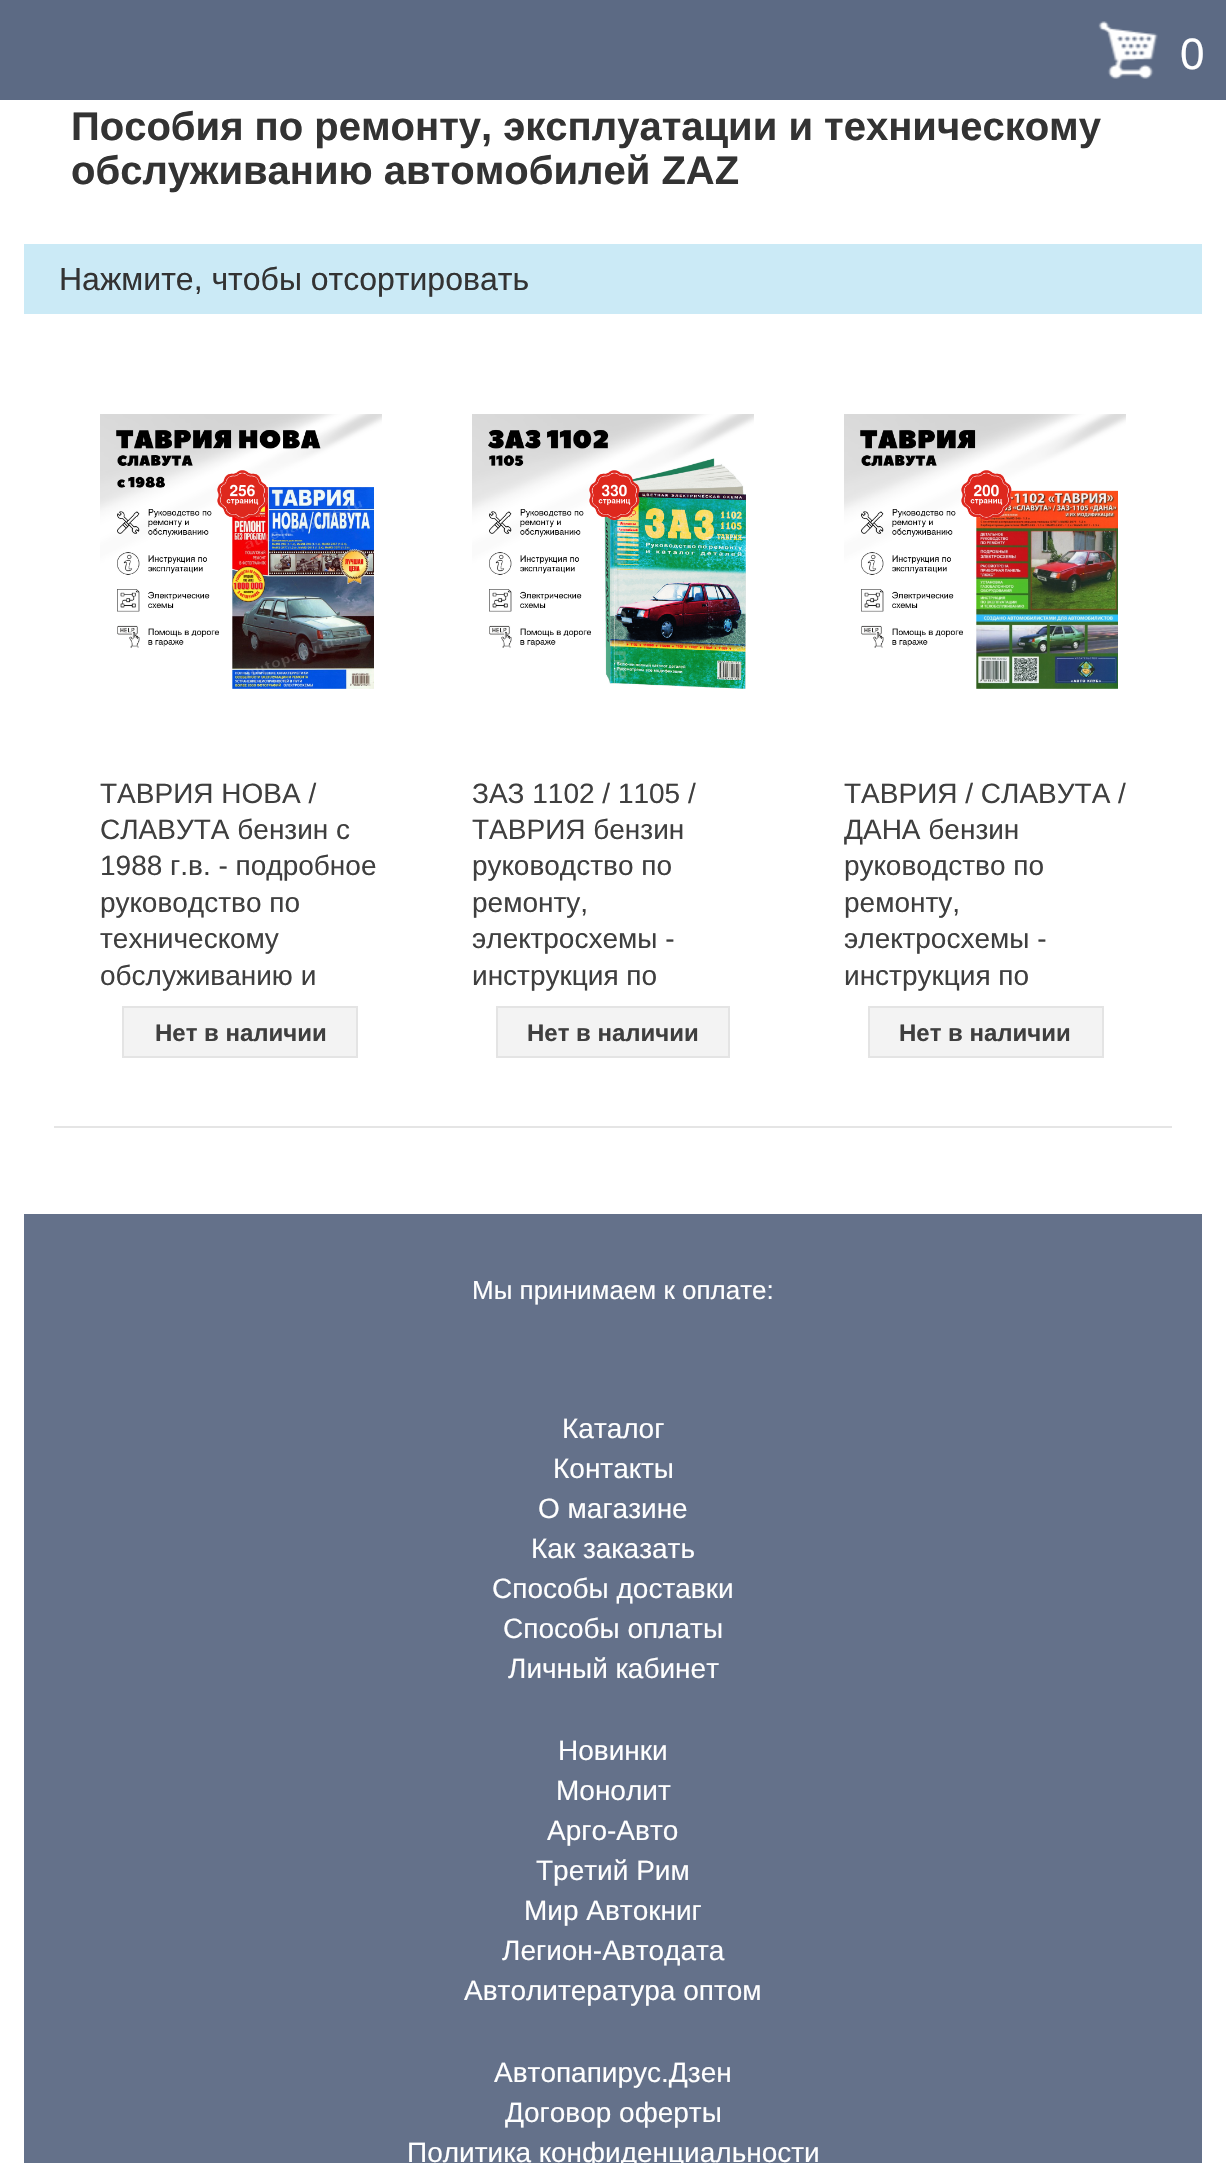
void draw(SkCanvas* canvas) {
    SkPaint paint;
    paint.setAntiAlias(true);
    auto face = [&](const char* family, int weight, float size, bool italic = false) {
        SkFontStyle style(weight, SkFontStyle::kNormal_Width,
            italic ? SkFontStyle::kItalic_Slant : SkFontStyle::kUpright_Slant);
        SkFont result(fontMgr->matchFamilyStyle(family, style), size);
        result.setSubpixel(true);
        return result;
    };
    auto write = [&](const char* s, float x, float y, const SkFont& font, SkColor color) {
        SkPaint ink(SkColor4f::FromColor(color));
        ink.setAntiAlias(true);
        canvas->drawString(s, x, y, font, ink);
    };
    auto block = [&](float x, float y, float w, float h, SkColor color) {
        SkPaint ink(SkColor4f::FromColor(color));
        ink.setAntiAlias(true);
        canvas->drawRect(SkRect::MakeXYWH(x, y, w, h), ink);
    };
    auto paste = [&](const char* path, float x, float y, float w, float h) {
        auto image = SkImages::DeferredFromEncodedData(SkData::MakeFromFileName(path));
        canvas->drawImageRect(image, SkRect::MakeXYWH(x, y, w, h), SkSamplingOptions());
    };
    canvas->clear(SK_ColorWHITE);
    block(0, 0, 1226, 100, SkColorSetRGB(92, 106, 132));
    paste("pic1.png", 1098, 21, 60, 58);
    auto kFont1 = face("Liberation Sans", 400, 44);
    write("0", 1180, 69, kFont1, SK_ColorWHITE);
    auto kFont2 = face("Liberation Sans", 700, 40);
    write("Пособия по ремонту, эксплуатации и техническому", 71, 140, kFont2, SkColorSetRGB(51, 51, 51));
    write("обслуживанию автомобилей ZAZ", 71, 184, kFont2, SkColorSetRGB(51, 51, 51));
    block(24, 244, 1178, 70, SkColorSetRGB(203, 234, 246));
    auto kFont3 = face("Liberation Sans", 400, 32);
    write("Нажмите, чтобы отсортировать", 59, 290, kFont3, SkColorSetRGB(51, 51, 51));
    block(54, 1126, 1118, 2, SkColorSetRGB(229, 229, 229));
    paste("pic2.png", 100, 414, 282, 275);
    auto kFont4 = face("Liberation Sans", 400, 28);
    write("ТАВРИЯ НОВА /", 100, 803, kFont4, SkColorSetRGB(63, 63, 63));
    write("СЛАВУТА бензин с", 100, 839, kFont4, SkColorSetRGB(63, 63, 63));
    write("1988 г.в. - подробное", 100, 875, kFont4, SkColorSetRGB(63, 63, 63));
    write("руководство по", 100, 912, kFont4, SkColorSetRGB(63, 63, 63));
    write("техническому", 100, 948, kFont4, SkColorSetRGB(63, 63, 63));
    write("обслуживанию и", 100, 985, kFont4, SkColorSetRGB(63, 63, 63));
    paint.setColor(SkColorSetRGB(243, 243, 243));
    canvas->drawRect(SkRect::MakeXYWH(123, 1007, 234, 50), paint);
    paint.setStyle(SkPaint::kStroke_Style);
    paint.setStrokeWidth(2);
    paint.setColor(SkColorSetRGB(228, 228, 228));
    canvas->drawRect(SkRect::MakeXYWH(123, 1007, 234, 50), paint);
    auto kFont5 = face("Liberation Sans", 700, 24);
    write("Нет в наличии", 155, 1041, kFont5, SkColorSetRGB(63, 63, 63));
    paste("pic3.png", 472, 414, 282, 275);
    write("ЗАЗ 1102 / 1105 /", 472, 803, kFont4, SkColorSetRGB(63, 63, 63));
    write("ТАВРИЯ бензин", 472, 839, kFont4, SkColorSetRGB(63, 63, 63));
    write("руководство по", 472, 875, kFont4, SkColorSetRGB(63, 63, 63));
    write("ремонту,", 472, 912, kFont4, SkColorSetRGB(63, 63, 63));
    write("электросхемы -", 472, 948, kFont4, SkColorSetRGB(63, 63, 63));
    write("инструкция по", 472, 985, kFont4, SkColorSetRGB(63, 63, 63));
    paint.setStyle(SkPaint::kFill_Style);
    paint.setColor(SkColorSetRGB(243, 243, 243));
    canvas->drawRect(SkRect::MakeXYWH(497, 1007, 232, 50), paint);
    paint.setStyle(SkPaint::kStroke_Style);
    paint.setColor(SkColorSetRGB(228, 228, 228));
    canvas->drawRect(SkRect::MakeXYWH(497, 1007, 232, 50), paint);
    write("Нет в наличии", 527, 1041, kFont5, SkColorSetRGB(63, 63, 63));
    paste("pic4.png", 844, 414, 282, 275);
    write("ТАВРИЯ / СЛАВУТА /", 844, 803, kFont4, SkColorSetRGB(63, 63, 63));
    write("ДАНА бензин", 844, 839, kFont4, SkColorSetRGB(63, 63, 63));
    write("руководство по", 844, 875, kFont4, SkColorSetRGB(63, 63, 63));
    write("ремонту,", 844, 912, kFont4, SkColorSetRGB(63, 63, 63));
    write("электросхемы -", 844, 948, kFont4, SkColorSetRGB(63, 63, 63));
    write("инструкция по", 844, 985, kFont4, SkColorSetRGB(63, 63, 63));
    paint.setStyle(SkPaint::kFill_Style);
    paint.setColor(SkColorSetRGB(243, 243, 243));
    canvas->drawRect(SkRect::MakeXYWH(869, 1007, 234, 50), paint);
    paint.setStyle(SkPaint::kStroke_Style);
    paint.setColor(SkColorSetRGB(228, 228, 228));
    canvas->drawRect(SkRect::MakeXYWH(869, 1007, 234, 50), paint);
    write("Нет в наличии", 899, 1041, kFont5, SkColorSetRGB(63, 63, 63));
    block(24, 1214, 1178, 949, SkColorSetRGB(100, 113, 138));
    auto kFont6 = face("Liberation Sans", 400, 26);
    write("Мы принимаем к оплате:", 472, 1299, kFont6, SK_ColorWHITE);
    write("Каталог", 562, 1438, kFont4, SK_ColorWHITE);
    write("Контакты", 553, 1478, kFont4, SK_ColorWHITE);
    write("О магазине", 538, 1518, kFont4, SK_ColorWHITE);
    write("Как заказать", 531, 1558, kFont4, SK_ColorWHITE);
    write("Способы доставки", 492, 1598, kFont4, SK_ColorWHITE);
    write("Способы оплаты", 503, 1638, kFont4, SK_ColorWHITE);
    write("Личный кабинет", 508, 1678, kFont4, SK_ColorWHITE);
    write("Новинки", 558, 1760, kFont4, SK_ColorWHITE);
    write("Монолит", 556, 1800, kFont4, SK_ColorWHITE);
    write("Арго-Авто", 547, 1840, kFont4, SK_ColorWHITE);
    write("Третий Рим", 536, 1880, kFont4, SK_ColorWHITE);
    write("Мир Автокниг", 524, 1920, kFont4, SK_ColorWHITE);
    write("Легион-Автодата", 502, 1960, kFont4, SK_ColorWHITE);
    write("Автолитература оптом", 464, 2000, kFont4, SK_ColorWHITE);
    write("Автопапирус.Дзен", 494, 2082, kFont4, SK_ColorWHITE);
    write("Договор оферты", 505, 2122, kFont4, SK_ColorWHITE);
    write("Политика конфиденциальности", 407, 2162, kFont4, SK_ColorWHITE);
}
